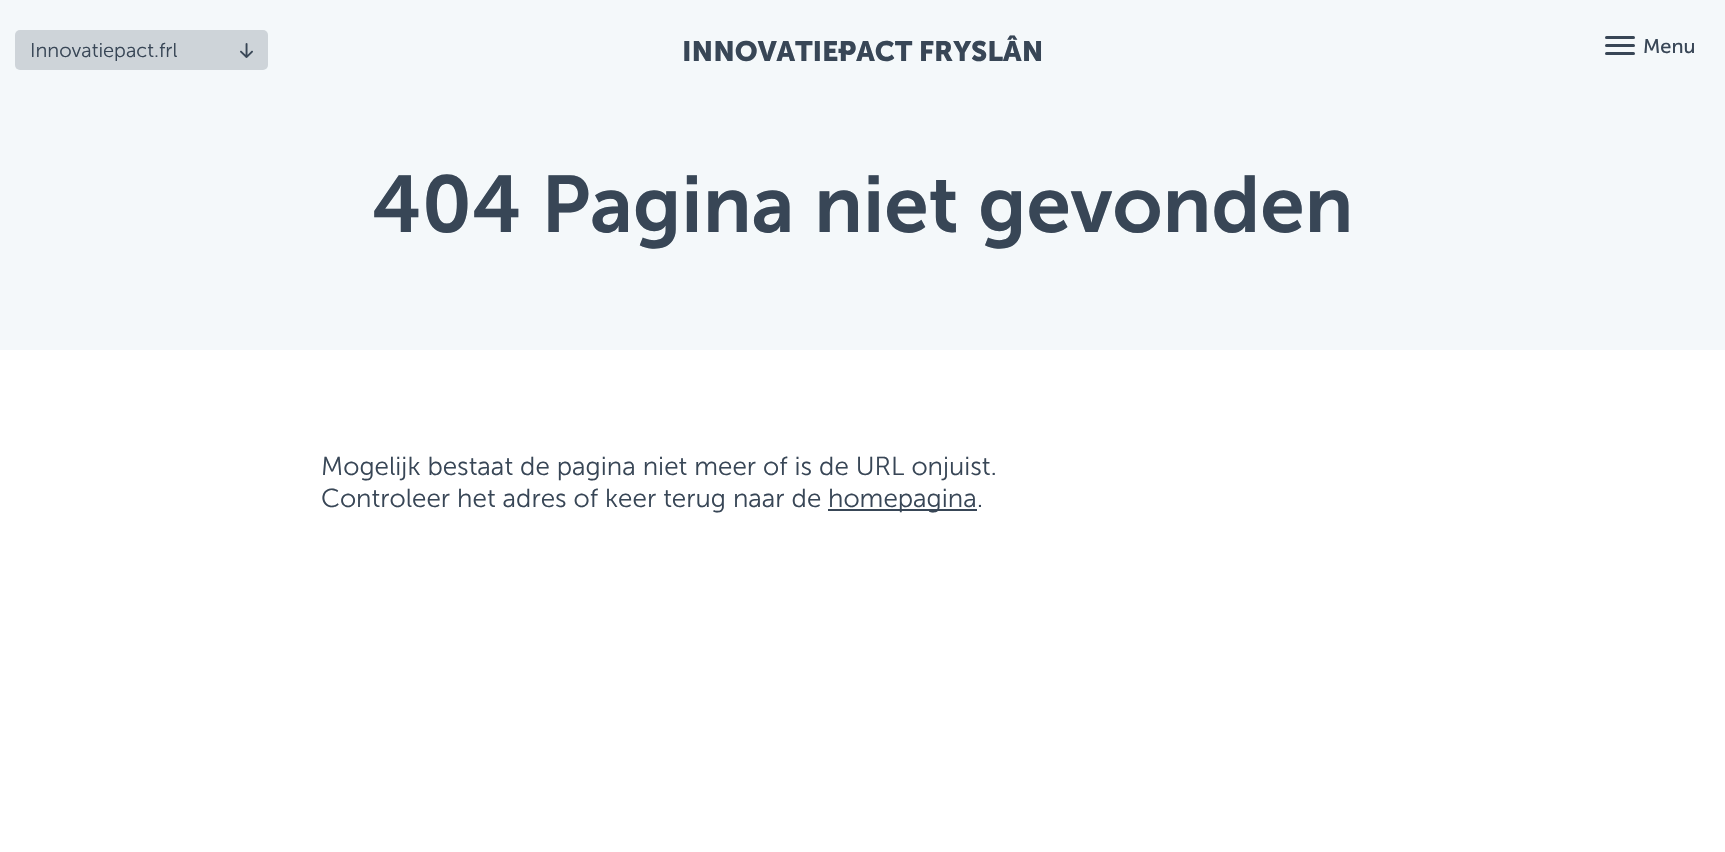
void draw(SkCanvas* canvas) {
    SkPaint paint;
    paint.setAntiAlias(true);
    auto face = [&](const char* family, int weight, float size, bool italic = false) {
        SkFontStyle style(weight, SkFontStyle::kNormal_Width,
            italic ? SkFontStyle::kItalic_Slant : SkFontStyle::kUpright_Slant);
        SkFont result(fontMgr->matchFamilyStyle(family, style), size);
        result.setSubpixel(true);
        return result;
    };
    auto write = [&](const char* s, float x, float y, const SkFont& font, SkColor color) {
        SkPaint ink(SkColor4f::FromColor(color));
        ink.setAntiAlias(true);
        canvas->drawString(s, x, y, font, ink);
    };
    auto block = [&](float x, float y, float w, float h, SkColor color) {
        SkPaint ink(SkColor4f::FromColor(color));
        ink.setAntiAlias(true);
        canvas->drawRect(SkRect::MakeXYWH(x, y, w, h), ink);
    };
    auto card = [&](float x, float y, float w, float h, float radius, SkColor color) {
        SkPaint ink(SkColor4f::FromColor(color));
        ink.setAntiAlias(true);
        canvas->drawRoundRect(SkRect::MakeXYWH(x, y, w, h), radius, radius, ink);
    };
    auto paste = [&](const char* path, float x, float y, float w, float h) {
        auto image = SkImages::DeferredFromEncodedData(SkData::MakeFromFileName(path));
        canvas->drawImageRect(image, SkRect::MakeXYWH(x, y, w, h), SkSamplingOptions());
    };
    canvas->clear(SK_ColorWHITE);
    block(0, 0, 1725, 350, SkColorSetRGB(244, 248, 250));
    card(15, 30, 253, 40, 5, SkColorSetRGB(206, 212, 217));
    paste("pic1.png", 240, 43, 13, 15);
    auto kFont1 = face("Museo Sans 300", 300, 20);
    write("Innovatiepact.frl", 30, 57, kFont1, SkColorSetRGB(56, 70, 86));
    auto kFont2 = face("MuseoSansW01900", 800, 28);
    write("INNOVATIEPACT FRYSLÂN", 682, 61, kFont2, SkColorSetRGB(56, 70, 86));
    card(1605, 44, 30, 3, 1.5f, SkColorSetRGB(56, 70, 86));
    card(1605, 36, 30, 3, 1.5f, SkColorSetRGB(56, 70, 86));
    card(1605, 52, 30, 3, 1.5f, SkColorSetRGB(56, 70, 86));
    auto kFont3 = face("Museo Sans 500", 400, 20);
    write("Menu", 1643, 53, kFont3, SkColorSetRGB(56, 70, 86));
    auto kFont4 = face("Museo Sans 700", 600, 80);
    write("404 Pagina niet gevonden", 372, 232, kFont4, SkColorSetRGB(56, 70, 86));
    auto kFont5 = face("Museo Sans 300", 300, 26);
    write("Mogelijk bestaat de pagina niet meer of is de URL onjuist.", 321, 475, kFont5, SkColorSetRGB(56, 70, 86));
    write("Controleer het adres of keer terug naar de", 321, 507, kFont5, SkColorSetRGB(56, 70, 86));
    block(828, 509, 149, 2, SkColorSetRGB(56, 70, 86));
    write("homepagina.", 828, 507, kFont5, SkColorSetRGB(56, 70, 86));
}
